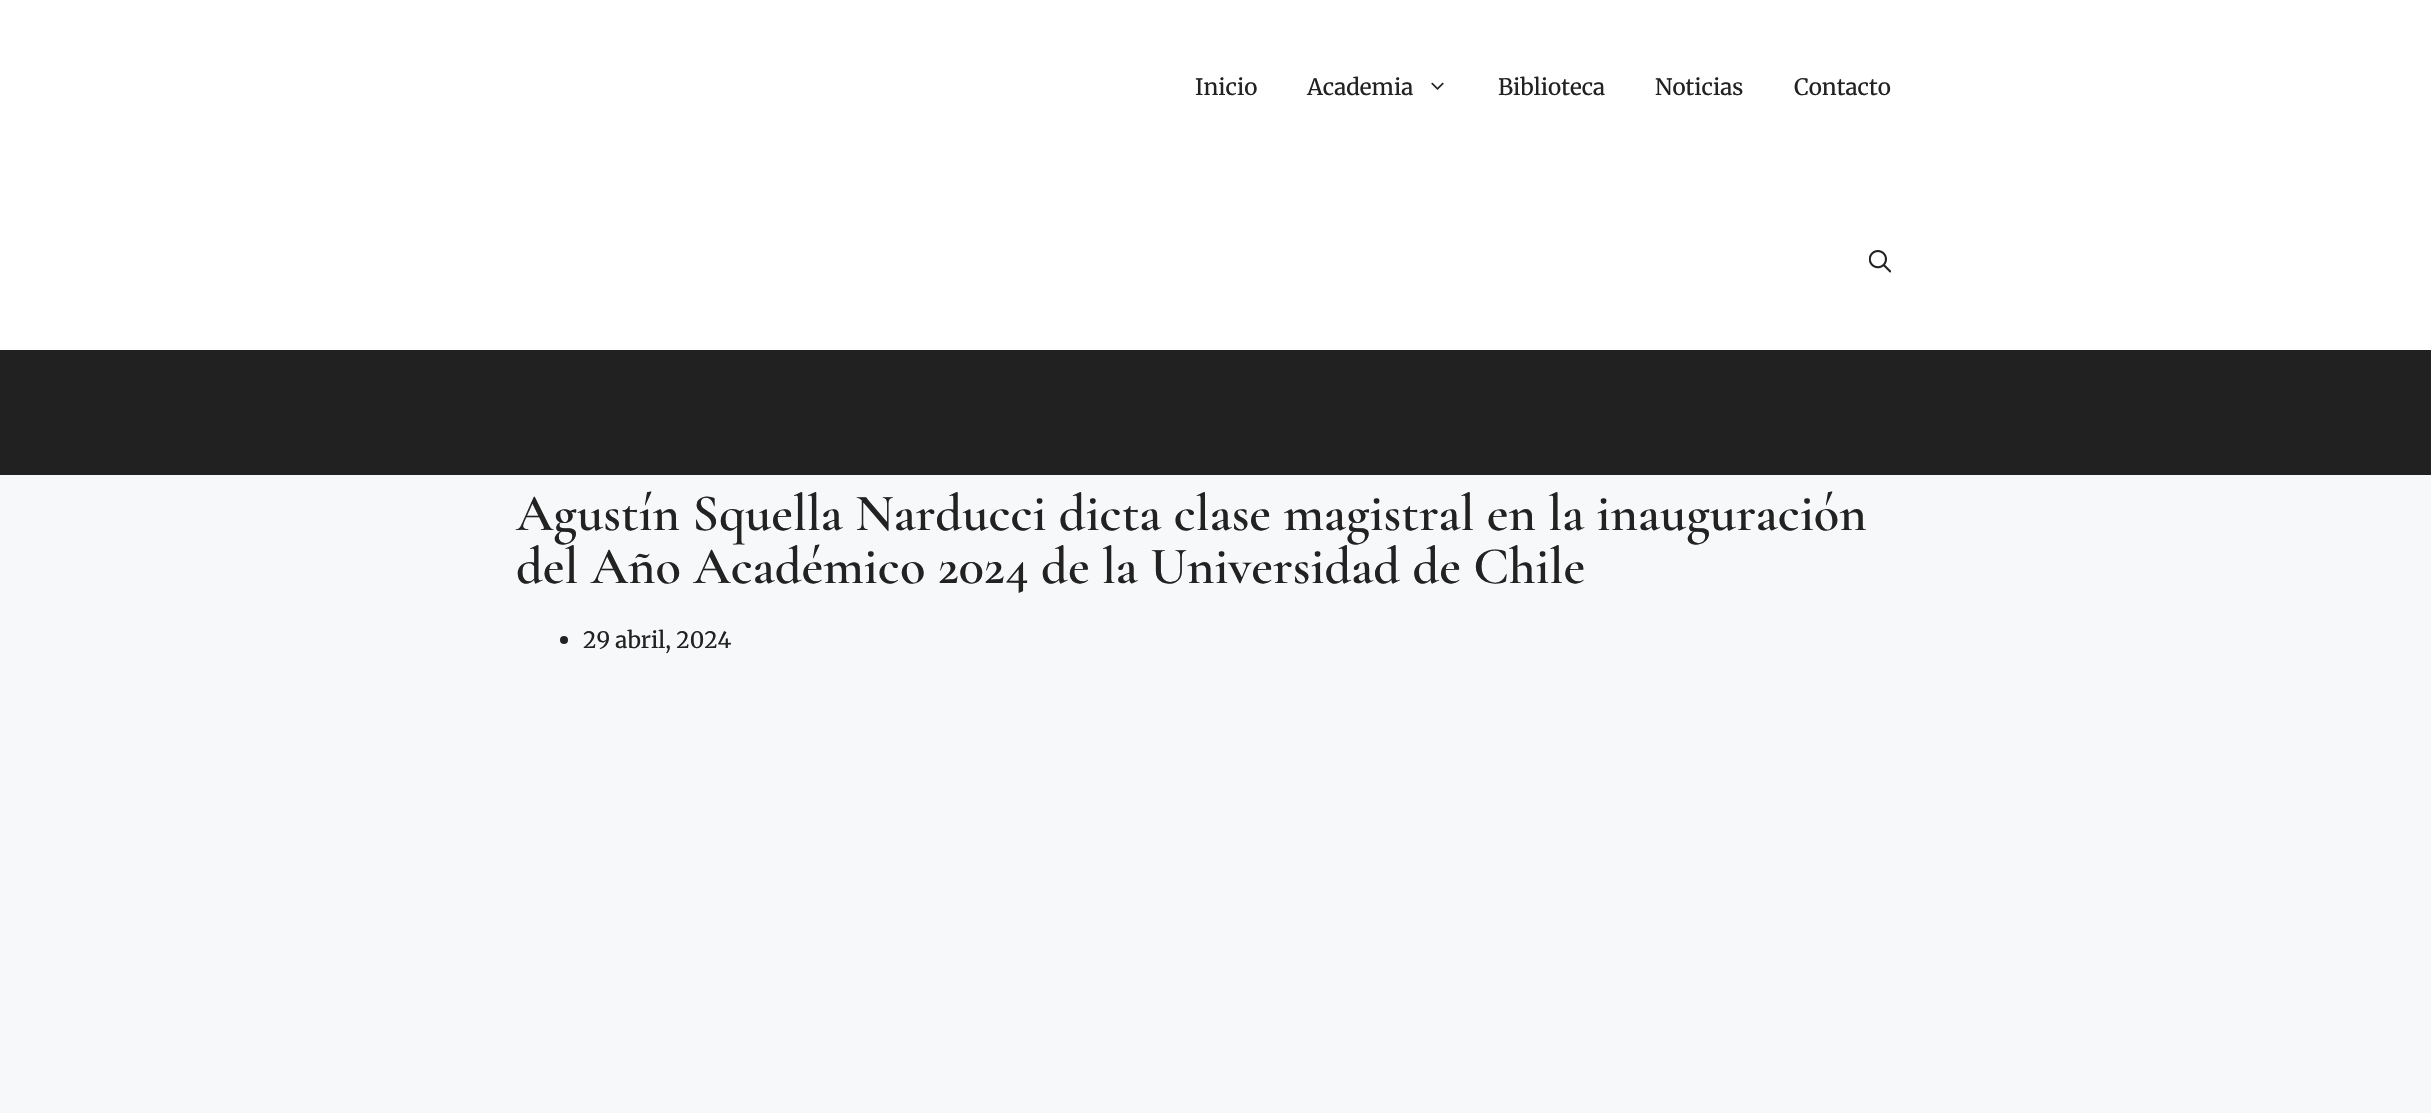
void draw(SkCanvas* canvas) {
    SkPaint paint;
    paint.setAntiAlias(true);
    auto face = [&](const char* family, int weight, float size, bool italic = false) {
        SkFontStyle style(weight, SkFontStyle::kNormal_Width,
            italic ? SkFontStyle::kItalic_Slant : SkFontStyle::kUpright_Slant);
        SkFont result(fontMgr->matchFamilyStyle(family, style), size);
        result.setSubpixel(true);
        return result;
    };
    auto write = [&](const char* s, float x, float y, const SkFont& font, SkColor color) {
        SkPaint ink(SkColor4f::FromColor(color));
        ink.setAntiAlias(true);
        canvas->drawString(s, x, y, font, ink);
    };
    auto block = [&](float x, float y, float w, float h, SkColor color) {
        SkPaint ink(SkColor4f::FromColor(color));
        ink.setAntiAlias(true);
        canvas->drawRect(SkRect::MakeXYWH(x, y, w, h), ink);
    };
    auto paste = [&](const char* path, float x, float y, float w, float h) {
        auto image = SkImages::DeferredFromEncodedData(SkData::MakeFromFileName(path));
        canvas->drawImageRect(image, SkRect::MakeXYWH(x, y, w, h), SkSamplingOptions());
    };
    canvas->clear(SkColorSetRGB(247, 248, 249));
    block(0, 0, 2431, 350, SK_ColorWHITE);
    auto kFont1 = face("Merriweather", 400, 22.5f);
    write("Inicio", 1195, 95, kFont1, SkColorSetRGB(34, 34, 34));
    write("Academia", 1307, 95, kFont1, SkColorSetRGB(34, 34, 34));
    paste("pic1.png", 1431, 82, 13, 8);
    write("Biblioteca", 1498, 95, kFont1, SkColorSetRGB(34, 34, 34));
    write("Noticias", 1655, 95, kFont1, SkColorSetRGB(34, 34, 34));
    write("Contacto", 1794, 95, kFont1, SkColorSetRGB(34, 34, 34));
    paste("pic2.png", 1869, 250, 22, 23);
    block(0, 350, 2431, 125, SkColorSetRGB(33, 33, 33));
    auto kFont2 = face("Cormorant Garamond", 600, 52.5f);
    write("Agustín Squella Narducci dicta clase magistral en la inauguración", 516, 530, kFont2, SkColorSetRGB(34, 34, 34));
    write("del Año Académico 2024 de la Universidad de Chile", 516, 583, kFont2, SkColorSetRGB(34, 34, 34));
    paint.setColor(SkColorSetRGB(34, 34, 34));
    canvas->drawCircle(564, 640, 4, paint);
    write("29 abril, 2024", 583, 648, kFont1, SkColorSetRGB(34, 34, 34));
}
